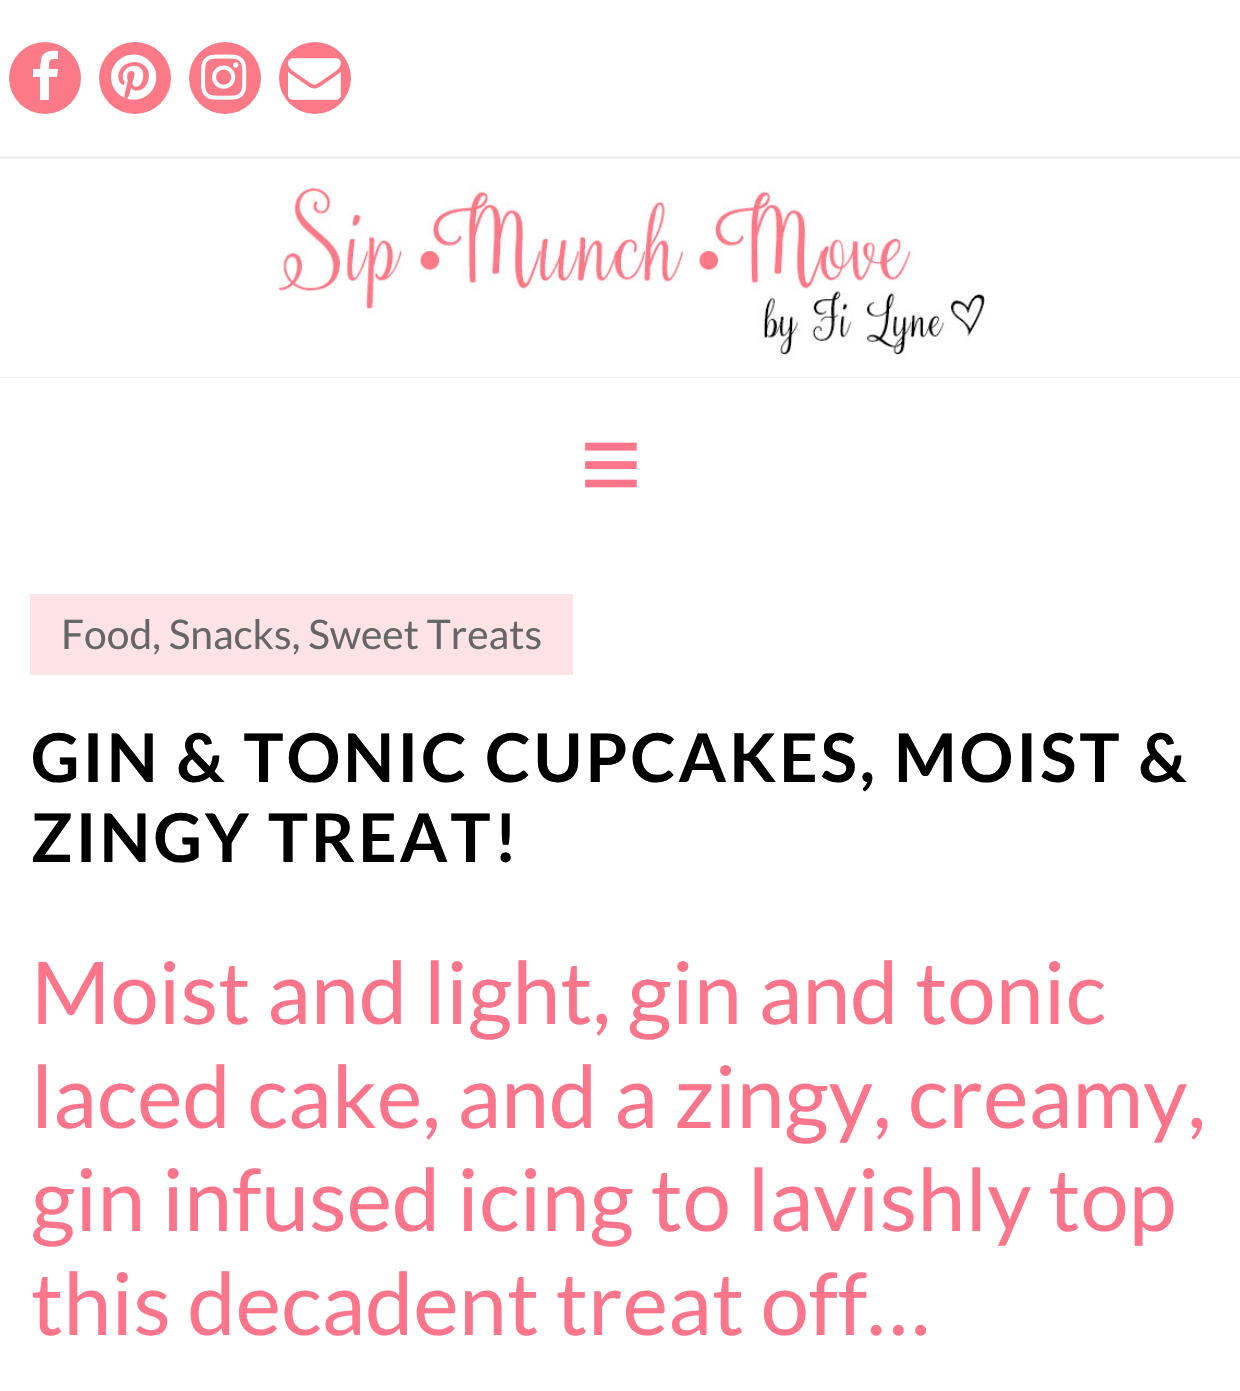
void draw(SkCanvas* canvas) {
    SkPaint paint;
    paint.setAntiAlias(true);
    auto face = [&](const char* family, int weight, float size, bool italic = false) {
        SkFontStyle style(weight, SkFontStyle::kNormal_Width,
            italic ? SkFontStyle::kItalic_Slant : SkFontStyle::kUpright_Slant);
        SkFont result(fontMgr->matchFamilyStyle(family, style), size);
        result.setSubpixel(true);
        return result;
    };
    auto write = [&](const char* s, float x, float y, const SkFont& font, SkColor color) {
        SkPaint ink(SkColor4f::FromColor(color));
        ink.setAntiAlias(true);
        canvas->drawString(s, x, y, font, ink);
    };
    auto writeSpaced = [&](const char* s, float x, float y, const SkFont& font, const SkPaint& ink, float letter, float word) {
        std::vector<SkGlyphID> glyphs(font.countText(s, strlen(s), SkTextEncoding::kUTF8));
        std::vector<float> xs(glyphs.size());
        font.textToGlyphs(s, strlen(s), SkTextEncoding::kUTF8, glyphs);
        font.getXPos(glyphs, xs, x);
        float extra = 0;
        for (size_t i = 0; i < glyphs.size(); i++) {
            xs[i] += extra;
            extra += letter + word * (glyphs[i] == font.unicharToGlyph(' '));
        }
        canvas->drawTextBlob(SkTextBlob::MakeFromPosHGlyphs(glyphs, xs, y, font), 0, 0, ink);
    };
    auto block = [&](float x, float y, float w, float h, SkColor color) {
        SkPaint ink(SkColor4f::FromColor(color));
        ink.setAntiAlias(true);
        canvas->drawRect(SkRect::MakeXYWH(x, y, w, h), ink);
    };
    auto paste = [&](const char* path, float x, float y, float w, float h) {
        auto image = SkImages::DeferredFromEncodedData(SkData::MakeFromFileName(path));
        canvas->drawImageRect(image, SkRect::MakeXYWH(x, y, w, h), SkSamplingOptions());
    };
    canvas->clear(SK_ColorWHITE);
    block(0, 156, 1240, 3, SkColorSetRGB(239, 239, 239));
    paint.setColor(SkColorSetRGB(252, 121, 136));
    canvas->drawCircle(45, 78, 36, paint);
    paint.setColor(SK_ColorWHITE);
    canvas->drawPath(SkPathBuilder().moveTo(58, 51).lineTo(58, 59).cubicTo(49, 59, 49, 59, 49, 69).lineTo(58, 69).lineTo(57, 77).lineTo(49, 77).lineTo(49, 100).lineTo(40, 100).lineTo(40, 77).lineTo(33, 77).lineTo(33, 69).lineTo(40, 69).lineTo(41, 60).cubicTo(42, 51, 51, 50, 58, 51).close().detach(), paint);
    paint.setColor(SkColorSetRGB(252, 121, 136));
    canvas->drawCircle(135, 78, 36, paint);
    paste("pic1.png", 111, 54, 46, 46);
    canvas->drawCircle(225, 78, 36, paint);
    paste("pic2.png", 201, 54, 46, 46);
    canvas->drawCircle(315, 78, 36, paint);
    paste("pic3.png", 288, 58, 53, 42);
    paste("pic4.png", 0, 185, 1240, 193);
    auto kFont1 = face("Liberation Sans", 400, 106);
    write("≡", 580, 500, kFont1, SkColorSetRGB(253, 117, 139));
    block(30, 594, 543, 81, SkColorSetRGB(253, 227, 230));
    auto kFont2 = face("Lato", 400, 40.75f);
    write("Food, Snacks, Sweet Treats", 61, 649, kFont2, SkColorSetRGB(102, 102, 102));
    auto kFont3 = face("Lato", 700, 67.25f);
    paint.setColor(SK_ColorBLACK);
    writeSpaced("GIN & TONIC CUPCAKES, MOIST &", 31, 782, kFont3, paint, 3, 0);
    writeSpaced("ZINGY TREAT!", 31, 862, kFont3, paint, 3, 0);
    auto kFont4 = face("Lato", 400, 86.4f);
    write("Moist and light, gin and tonic", 31, 1024, kFont4, SkColorSetRGB(253, 117, 139));
    write("laced cake, and a zingy, creamy,", 31, 1128, kFont4, SkColorSetRGB(253, 117, 139));
    write("gin infused icing to lavishly top", 31, 1231, kFont4, SkColorSetRGB(253, 117, 139));
    write("this decadent treat off…", 31, 1335, kFont4, SkColorSetRGB(253, 117, 139));
}
